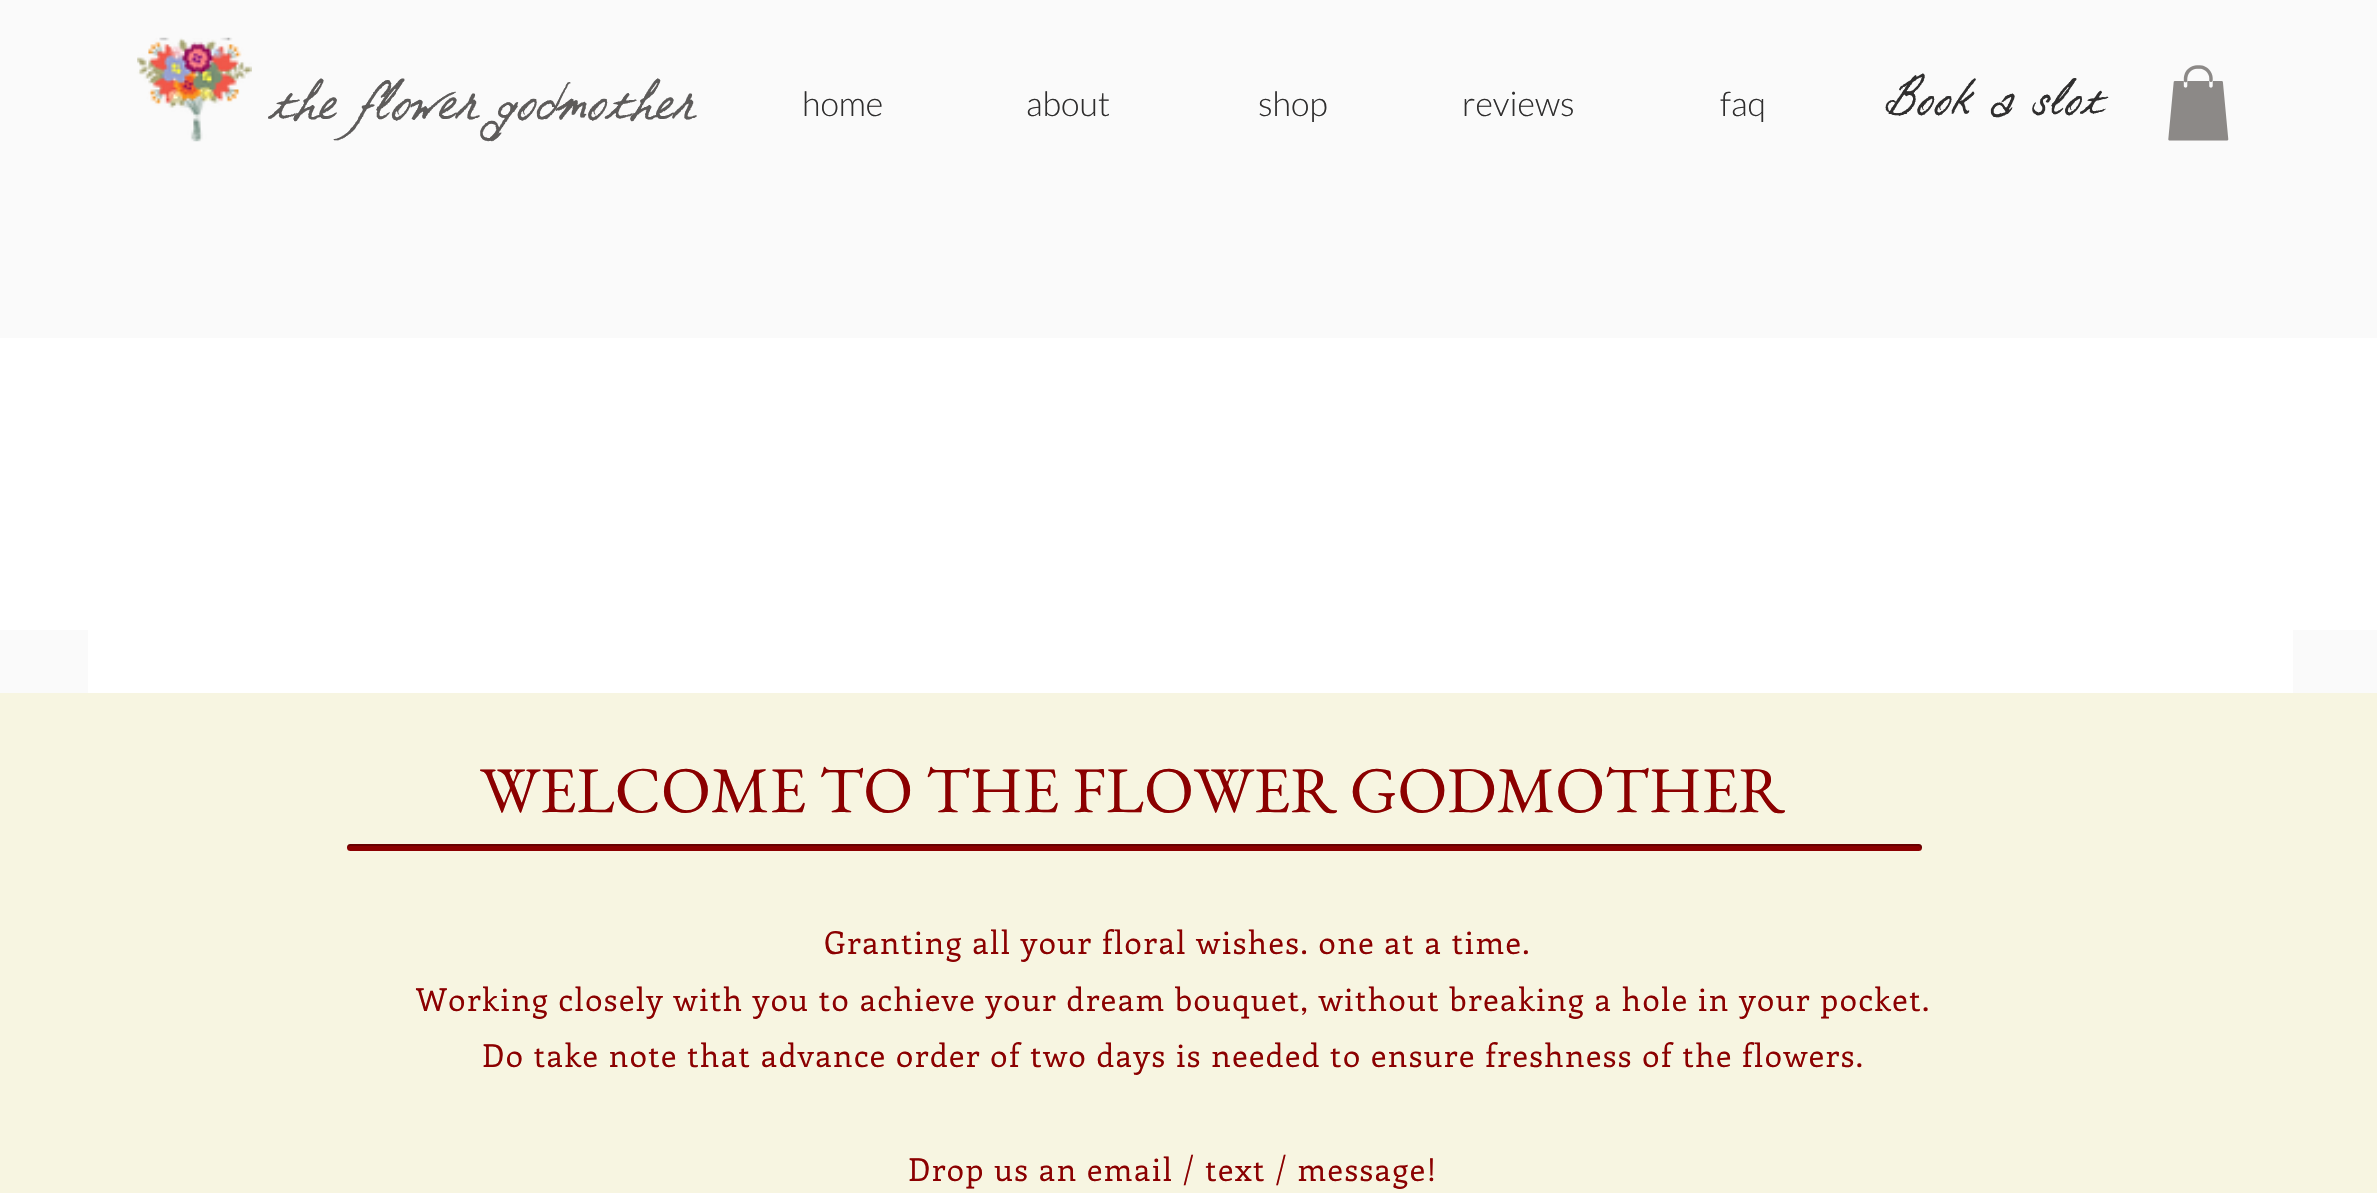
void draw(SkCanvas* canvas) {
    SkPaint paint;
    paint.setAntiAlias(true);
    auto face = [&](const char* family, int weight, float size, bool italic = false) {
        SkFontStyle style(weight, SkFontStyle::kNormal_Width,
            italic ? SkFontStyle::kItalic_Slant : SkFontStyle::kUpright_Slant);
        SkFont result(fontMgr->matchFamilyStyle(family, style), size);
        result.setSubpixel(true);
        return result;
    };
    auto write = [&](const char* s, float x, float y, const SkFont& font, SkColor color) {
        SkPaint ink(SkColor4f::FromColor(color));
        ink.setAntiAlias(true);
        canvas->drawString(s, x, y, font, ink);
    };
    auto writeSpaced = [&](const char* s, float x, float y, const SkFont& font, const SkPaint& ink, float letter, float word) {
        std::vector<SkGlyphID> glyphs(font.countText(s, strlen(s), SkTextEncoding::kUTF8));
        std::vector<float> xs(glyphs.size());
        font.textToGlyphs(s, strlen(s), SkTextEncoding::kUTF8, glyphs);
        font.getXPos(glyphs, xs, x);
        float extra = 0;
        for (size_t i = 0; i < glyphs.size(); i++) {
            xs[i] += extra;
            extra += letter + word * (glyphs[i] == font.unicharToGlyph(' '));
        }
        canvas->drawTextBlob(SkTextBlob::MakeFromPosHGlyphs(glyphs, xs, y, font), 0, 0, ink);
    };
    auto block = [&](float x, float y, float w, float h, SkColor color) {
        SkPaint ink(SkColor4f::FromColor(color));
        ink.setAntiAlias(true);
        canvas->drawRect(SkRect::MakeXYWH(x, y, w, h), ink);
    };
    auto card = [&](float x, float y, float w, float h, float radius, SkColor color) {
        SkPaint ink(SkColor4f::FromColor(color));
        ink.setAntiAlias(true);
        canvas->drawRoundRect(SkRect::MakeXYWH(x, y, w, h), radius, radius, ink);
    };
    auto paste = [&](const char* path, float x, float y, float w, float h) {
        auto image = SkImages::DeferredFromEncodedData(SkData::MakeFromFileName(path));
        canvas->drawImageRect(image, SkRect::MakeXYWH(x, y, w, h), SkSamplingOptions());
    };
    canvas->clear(SkColorSetRGB(250, 250, 250));
    paste("pic1.png", 137, 37, 115, 105);
    auto kFont1 = face("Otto", 500, 99);
    write("the flower godmother", 270, 119, kFont1, SkColorSetRGB(93, 91, 90));
    auto kFont2 = face("Lato", 300, 34);
    write("home", 802, 116, kFont2, SkColorSetRGB(47, 46, 46));
    write("about", 1026, 116, kFont2, SkColorSetRGB(47, 46, 46));
    write("shop", 1258, 116, kFont2, SkColorSetRGB(47, 46, 46));
    write("reviews", 1462, 116, kFont2, SkColorSetRGB(47, 46, 46));
    write("faq", 1720, 116, kFont2, SkColorSetRGB(47, 46, 46));
    auto kFont3 = face("Otto", 500, 88);
    write("Book a slot", 1885, 114, kFont3, SkColorSetRGB(47, 46, 46));
    paste("pic2.png", 2168, 65, 61, 76);
    block(88, 630, 2205, 63, SK_ColorWHITE);
    block(0, 338, 2377, 292, SK_ColorWHITE);
    block(0, 693, 2377, 500, SkColorSetRGB(247, 245, 225));
    auto kFont4 = face("EB Garamond", 400, 65.25f);
    write("WELCOME TO THE FLOWER GODMOTHER", 480, 812, kFont4, SkColorSetRGB(139, 0, 0));
    auto kFont5 = face("Enriqueta", 400, 31.5f);
    paint.setColor(SkColorSetRGB(139, 0, 0));
    writeSpaced("Granting all your floral wishes. one at a time.", 824, 954, kFont5, paint, 1.57f, 0);
    writeSpaced("Working closely with you to achieve your dream bouquet, without breaking a hole in your pocket.", 416, 1011, kFont5, paint, 1.57f, 0);
    writeSpaced("Do take note that advance order of two days is needed to ensure freshness of the flowers.", 482, 1067, kFont5, paint, 1.57f, 0);
    writeSpaced("Drop us an email / text / message!", 908, 1181, kFont5, paint, 1.57f, 0);
    paint.setColor(SkColorSetRGB(248, 246, 228));
    canvas->drawPath(SkPathBuilder().moveTo(347, 849).cubicTo(347, 850, 347, 851, 348, 852).lineTo(350, 853).lineTo(1920, 853).cubicTo(1922, 852, 1923, 849, 1921, 848).cubicTo(1921, 849, 1920, 850, 1918, 850).lineTo(350, 850).cubicTo(349, 850, 348, 850, 347, 849).close().detach(), paint);
    card(347, 844, 1575, 7, 3.5f, SkColorSetRGB(139, 0, 0));
    paint.setColor(SkColorSetARGB(64, 0, 0, 0));
    canvas->drawPath(SkPathBuilder().moveTo(350, 846).lineTo(1918, 846).cubicTo(1920, 846, 1921, 848, 1921, 849).cubicTo(1923, 848, 1922, 845, 1920, 844).lineTo(350, 844).cubicTo(348, 844, 347, 846, 347, 848).cubicTo(347, 847, 348, 846, 350, 846).close().detach(), paint);
}
